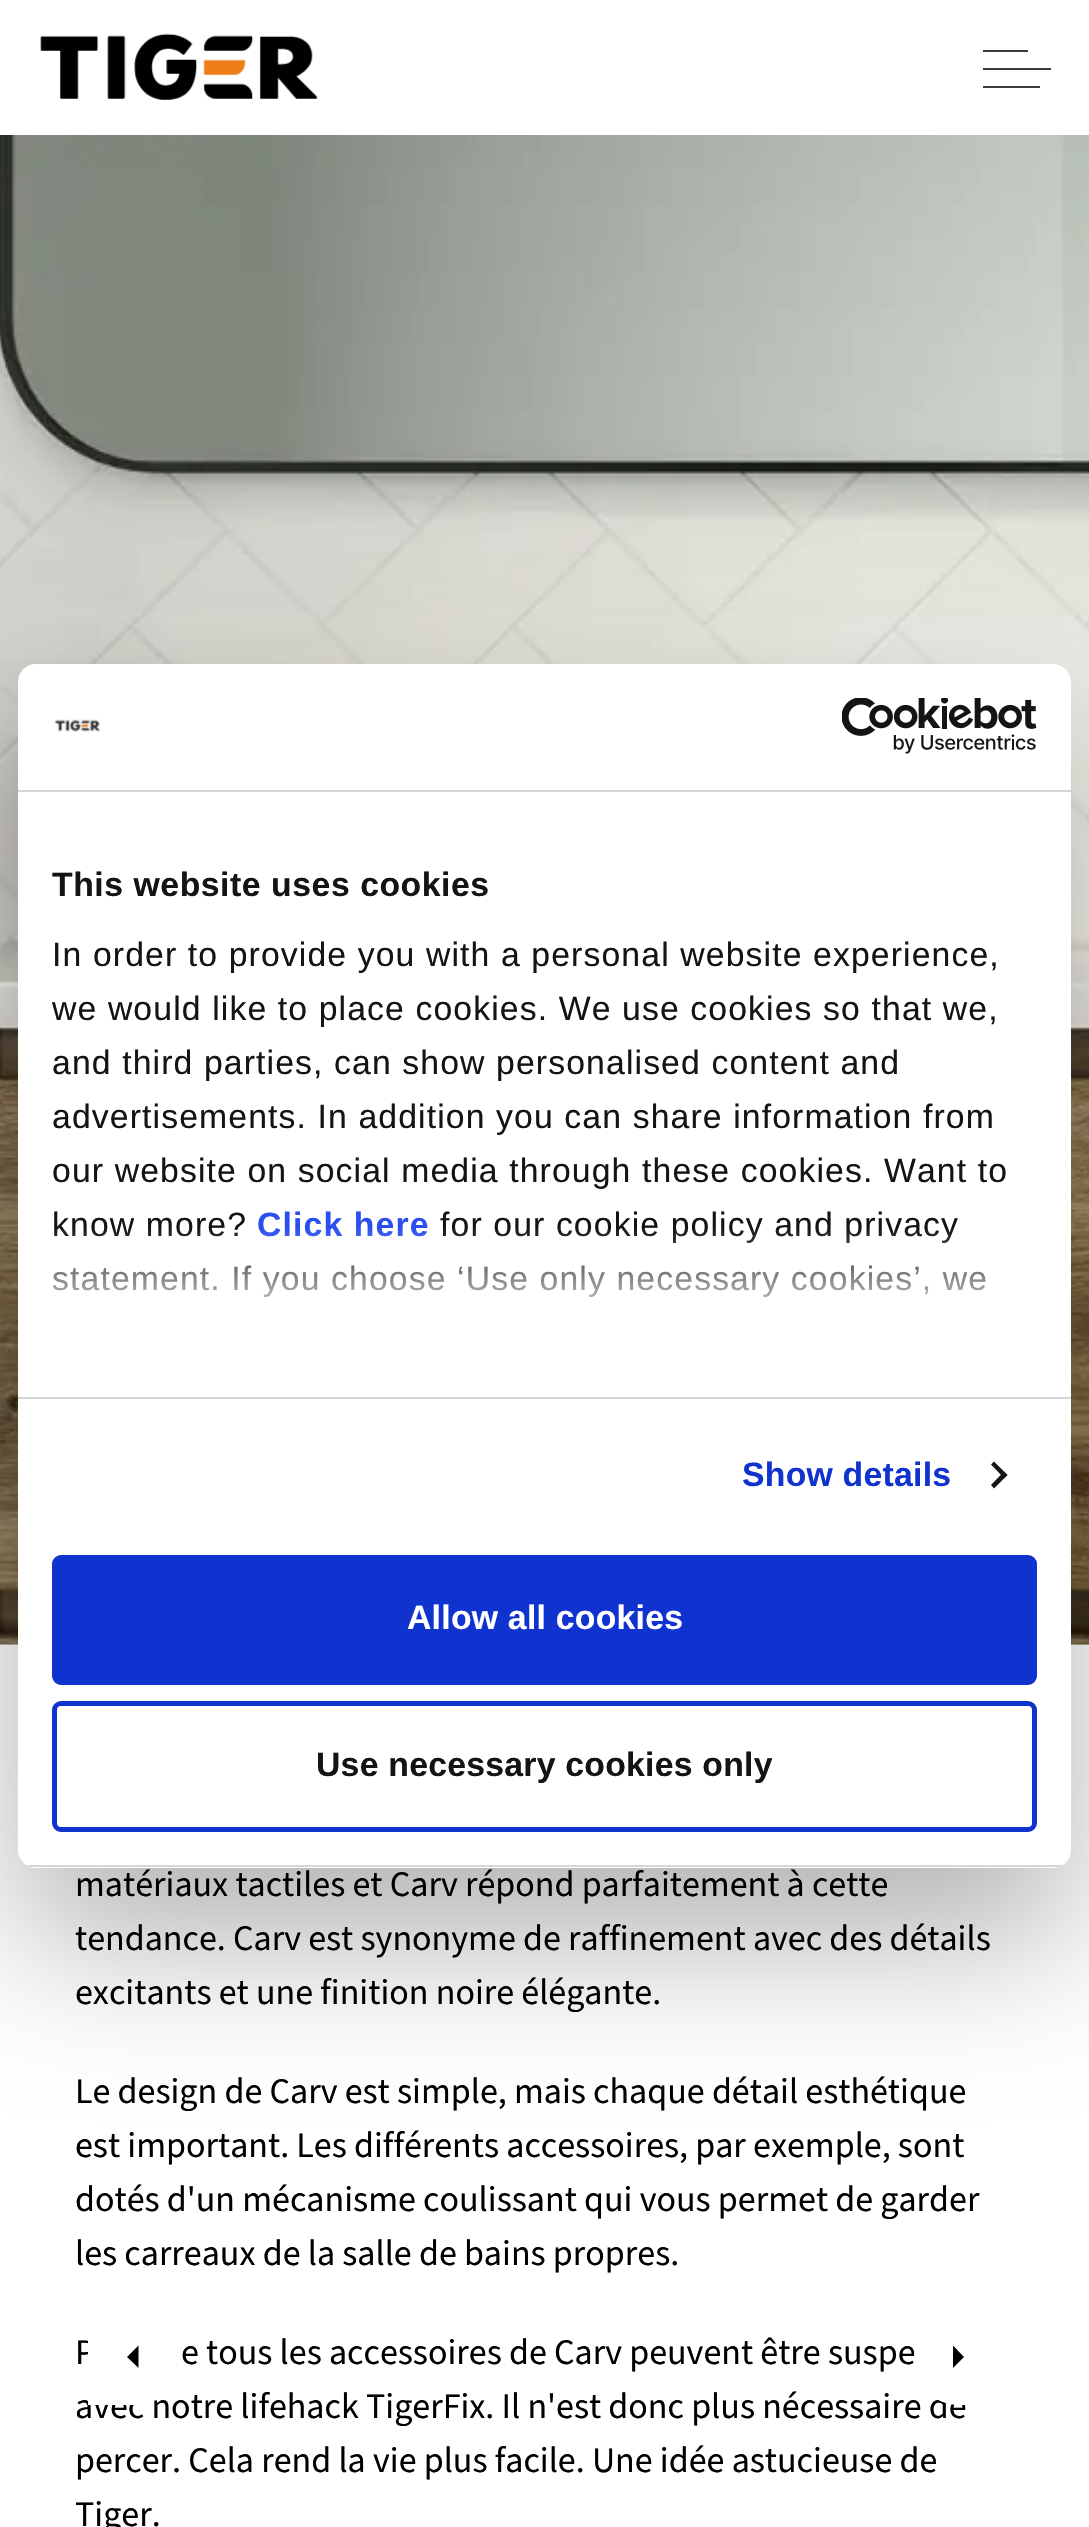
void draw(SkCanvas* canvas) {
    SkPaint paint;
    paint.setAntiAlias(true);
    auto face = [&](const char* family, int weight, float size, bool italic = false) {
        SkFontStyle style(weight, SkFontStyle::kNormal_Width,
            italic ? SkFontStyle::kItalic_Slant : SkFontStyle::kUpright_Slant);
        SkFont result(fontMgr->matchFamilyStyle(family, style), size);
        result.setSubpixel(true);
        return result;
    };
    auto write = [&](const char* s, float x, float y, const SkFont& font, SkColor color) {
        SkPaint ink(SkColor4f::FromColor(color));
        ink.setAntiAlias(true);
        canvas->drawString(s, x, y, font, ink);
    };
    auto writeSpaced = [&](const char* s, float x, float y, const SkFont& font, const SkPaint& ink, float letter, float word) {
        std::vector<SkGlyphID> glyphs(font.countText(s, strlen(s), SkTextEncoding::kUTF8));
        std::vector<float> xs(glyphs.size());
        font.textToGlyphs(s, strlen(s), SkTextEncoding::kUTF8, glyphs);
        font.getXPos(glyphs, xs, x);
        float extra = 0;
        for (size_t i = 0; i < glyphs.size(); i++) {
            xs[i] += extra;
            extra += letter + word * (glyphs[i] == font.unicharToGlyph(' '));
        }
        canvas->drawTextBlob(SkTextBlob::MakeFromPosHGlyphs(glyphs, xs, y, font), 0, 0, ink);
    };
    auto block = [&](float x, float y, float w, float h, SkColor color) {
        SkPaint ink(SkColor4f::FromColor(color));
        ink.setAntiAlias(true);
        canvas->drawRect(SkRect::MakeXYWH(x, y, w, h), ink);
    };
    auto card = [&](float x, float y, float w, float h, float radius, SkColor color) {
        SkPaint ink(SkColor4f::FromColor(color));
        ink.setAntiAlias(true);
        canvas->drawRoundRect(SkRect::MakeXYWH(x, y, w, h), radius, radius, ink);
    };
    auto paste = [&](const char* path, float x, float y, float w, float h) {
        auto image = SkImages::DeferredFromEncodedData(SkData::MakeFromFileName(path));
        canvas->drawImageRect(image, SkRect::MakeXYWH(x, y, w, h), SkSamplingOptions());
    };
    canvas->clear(SK_ColorWHITE);
    paste("pic4.png", 0, 135, 1089, 1510);
    paint.setColor(SkColorSetARGB(77, 0, 0, 0));
    paint.setMaskFilter(SkMaskFilter::MakeBlur(kNormal_SkBlurStyle, 76.5f));
    canvas->drawRoundRect(SkRect::MakeXYWH(18, 736, 1053, 1204), 18, 18, paint);
    paint.setMaskFilter(nullptr);
    card(18, 664, 1053, 1204, 18, SK_ColorWHITE);
    block(18, 790, 1053, 2, SkColorSetRGB(214, 214, 214));
    paste("pic1.png", 54, 719, 47, 13);
    paste("pic2.png", 842, 698, 195, 56);
    block(18, 1397, 1053, 2, SkColorSetRGB(214, 214, 214));
    auto kFont1 = face("Liberation Sans", 700, 33.75f);
    paint.setColor(SkColorSetRGB(20, 20, 20));
    writeSpaced("This website uses cookies", 52, 896, kFont1, paint, 0.55f, 0);
    auto kFont2 = face("Liberation Sans", 400, 33.75f);
    writeSpaced("In order to provide you with a personal website experience,", 52, 966, kFont2, paint, 1.12f, 0);
    writeSpaced("we would like to place cookies. We use cookies so that we,", 52, 1020, kFont2, paint, 1.12f, 0);
    writeSpaced("and third parties, can show personalised content and", 52, 1074, kFont2, paint, 1.12f, 0);
    writeSpaced("advertisements. In addition you can share information from", 52, 1128, kFont2, paint, 1.12f, 0);
    writeSpaced("our website on social media through these cookies. Want to", 52, 1182, kFont2, paint, 1.12f, 0);
    writeSpaced("know more?", 52, 1236, kFont2, paint, 1.12f, 0);
    paint.setColor(SkColorSetRGB(42, 78, 239));
    writeSpaced("Click here", 257, 1236, kFont1, paint, 1.12f, 0);
    paint.setColor(SkColorSetRGB(20, 20, 20));
    writeSpaced("for our cookie policy and privacy", 440, 1236, kFont2, paint, 1.12f, 0);
    writeSpaced("statement. If you choose ‘Use only necessary cookies’, we", 52, 1290, kFont2, paint, 1.12f, 0);
    {
        const SkColor colors[] = {SK_ColorWHITE, SkColorSetARGB(204, 255, 255, 255), SkColorSetARGB(0, 255, 255, 255)};
        const float stops[] = {0, 0.5f, 1};
        const SkPoint ends[] = {{530, 1396}, {530, 1227}};
        paint.setShader(SkGradientShader::MakeLinear(ends, colors, stops, 3, SkTileMode::kClamp));
        paint.setAlpha(255);
    }
    canvas->drawRect(SkRect::MakeXYWH(52, 1229, 934, 68), paint);
    paint.setShader(nullptr);
    paint.setColor(SkColorSetRGB(16, 50, 207));
    writeSpaced("Show details", 742, 1486, kFont1, paint, 0.25f, 0);
    paint.setColor(SkColorSetRGB(20, 20, 20));
    canvas->drawPath(SkPathBuilder().moveTo(994, 1461.5f).lineTo(1007.5f, 1475).lineTo(1004, 1478).lineTo(991, 1464.5f).close().detach(), paint);
    canvas->drawPath(SkPathBuilder().moveTo(1004, 1471.5f).lineTo(1007.5f, 1475).lineTo(994, 1488.5f).lineTo(991, 1485).close().detach(), paint);
    canvas->save();
    canvas->clipPath(SkPathBuilder().moveTo(36, 664).lineTo(1053, 664).cubicTo(1063, 664, 1071, 672, 1071, 682).lineTo(1071, 1850).cubicTo(1071, 1860, 1063, 1868, 1053, 1868).lineTo(36, 1868).cubicTo(26, 1868, 18, 1860, 18, 1850).lineTo(18, 682).cubicTo(18, 672, 26, 664, 36, 664).close().detach(), true);
    block(18, 1865, 1053, 2, SkColorSetRGB(214, 214, 214));
    canvas->restore();
    paint.setColor(SkColorSetRGB(16, 50, 207));
    canvas->drawRoundRect(SkRect::MakeXYWH(54.5f, 1557.5f, 980, 125), 6.5f, 6.5f, paint);
    paint.setStyle(SkPaint::kStroke_Style);
    paint.setStrokeWidth(5);
    canvas->drawRoundRect(SkRect::MakeXYWH(54.5f, 1557.5f, 980, 125), 6.5f, 6.5f, paint);
    paint.setStyle(SkPaint::kFill_Style);
    paint.setColor(SK_ColorWHITE);
    writeSpaced("Allow all cookies", 407, 1629, kFont1, paint, 0.25f, 0);
    paint.setStyle(SkPaint::kStroke_Style);
    paint.setColor(SkColorSetRGB(16, 50, 207));
    canvas->drawRoundRect(SkRect::MakeXYWH(54.5f, 1703.5f, 980, 126), 6.5f, 6.5f, paint);
    paint.setStyle(SkPaint::kFill_Style);
    paint.setColor(SkColorSetRGB(20, 20, 20));
    writeSpaced("Use necessary cookies only", 316, 1776, kFont1, paint, 0.25f, 0);
    paste("pic3.png", 40, 33, 278, 67);
    block(983, 68, 68, 2, SkColorSetRGB(60, 60, 59));
    block(983, 50, 45, 2, SkColorSetRGB(60, 60, 59));
    block(983, 86, 57, 2, SkColorSetRGB(60, 60, 59));
    auto kFont3 = face("Source Sans 3", 400, 36);
    write("matériaux tactiles et Carv répond parfaitement à cette", 75, 1896, kFont3, SK_ColorBLACK);
    write("tendance. Carv est synonyme de raffinement avec des détails", 75, 1950, kFont3, SK_ColorBLACK);
    write("excitants et une finition noire élégante.", 75, 2004, kFont3, SK_ColorBLACK);
    write("Le design de Carv est simple, mais chaque détail esthétique", 75, 2103, kFont3, SK_ColorBLACK);
    write("est important. Les différents accessoires, par exemple, sont", 75, 2157, kFont3, SK_ColorBLACK);
    write("dotés d'un mécanisme coulissant qui vous permet de garder", 75, 2211, kFont3, SK_ColorBLACK);
    write("les carreaux de la salle de bains propres.", 75, 2265, kFont3, SK_ColorBLACK);
    write("P", 75, 2364, kFont3, SK_ColorBLACK);
    write("e tous les accessoires de Carv peuvent être suspe", 181, 2364, kFont3, SK_ColorBLACK);
    write("avec notre lifehack TigerFix. Il n'est donc plus nécessaire de", 75, 2418, kFont3, SK_ColorBLACK);
    write("percer. Cela rend la vie plus facile. Une idée astucieuse de", 75, 2472, kFont3, SK_ColorBLACK);
    write("Tiger.", 75, 2526, kFont3, SK_ColorBLACK);
    paint.setColor(SK_ColorWHITE);
    canvas->drawPath(SkPathBuilder().moveTo(88, 2315).lineTo(133, 2315).cubicTo(158, 2315, 178, 2335, 178, 2360).cubicTo(178, 2385, 158, 2405, 133, 2405).lineTo(88, 2405).close().detach(), paint);
    paint.setColor(SK_ColorBLACK);
    canvas->drawPath(SkPathBuilder().moveTo(138.5f, 2345.5f).lineTo(138.5f, 2368).lineTo(127, 2357).close().detach(), paint);
    paint.setColor(SK_ColorWHITE);
    canvas->drawPath(SkPathBuilder().moveTo(959, 2315).lineTo(1004, 2315).lineTo(1004, 2405).lineTo(959, 2405).cubicTo(934, 2405, 914, 2385, 914, 2360).cubicTo(914, 2335, 934, 2315, 959, 2315).close().detach(), paint);
    paint.setColor(SK_ColorBLACK);
    canvas->drawPath(SkPathBuilder().moveTo(953, 2345.5f).lineTo(964, 2357).lineTo(953, 2368).close().detach(), paint);
}
